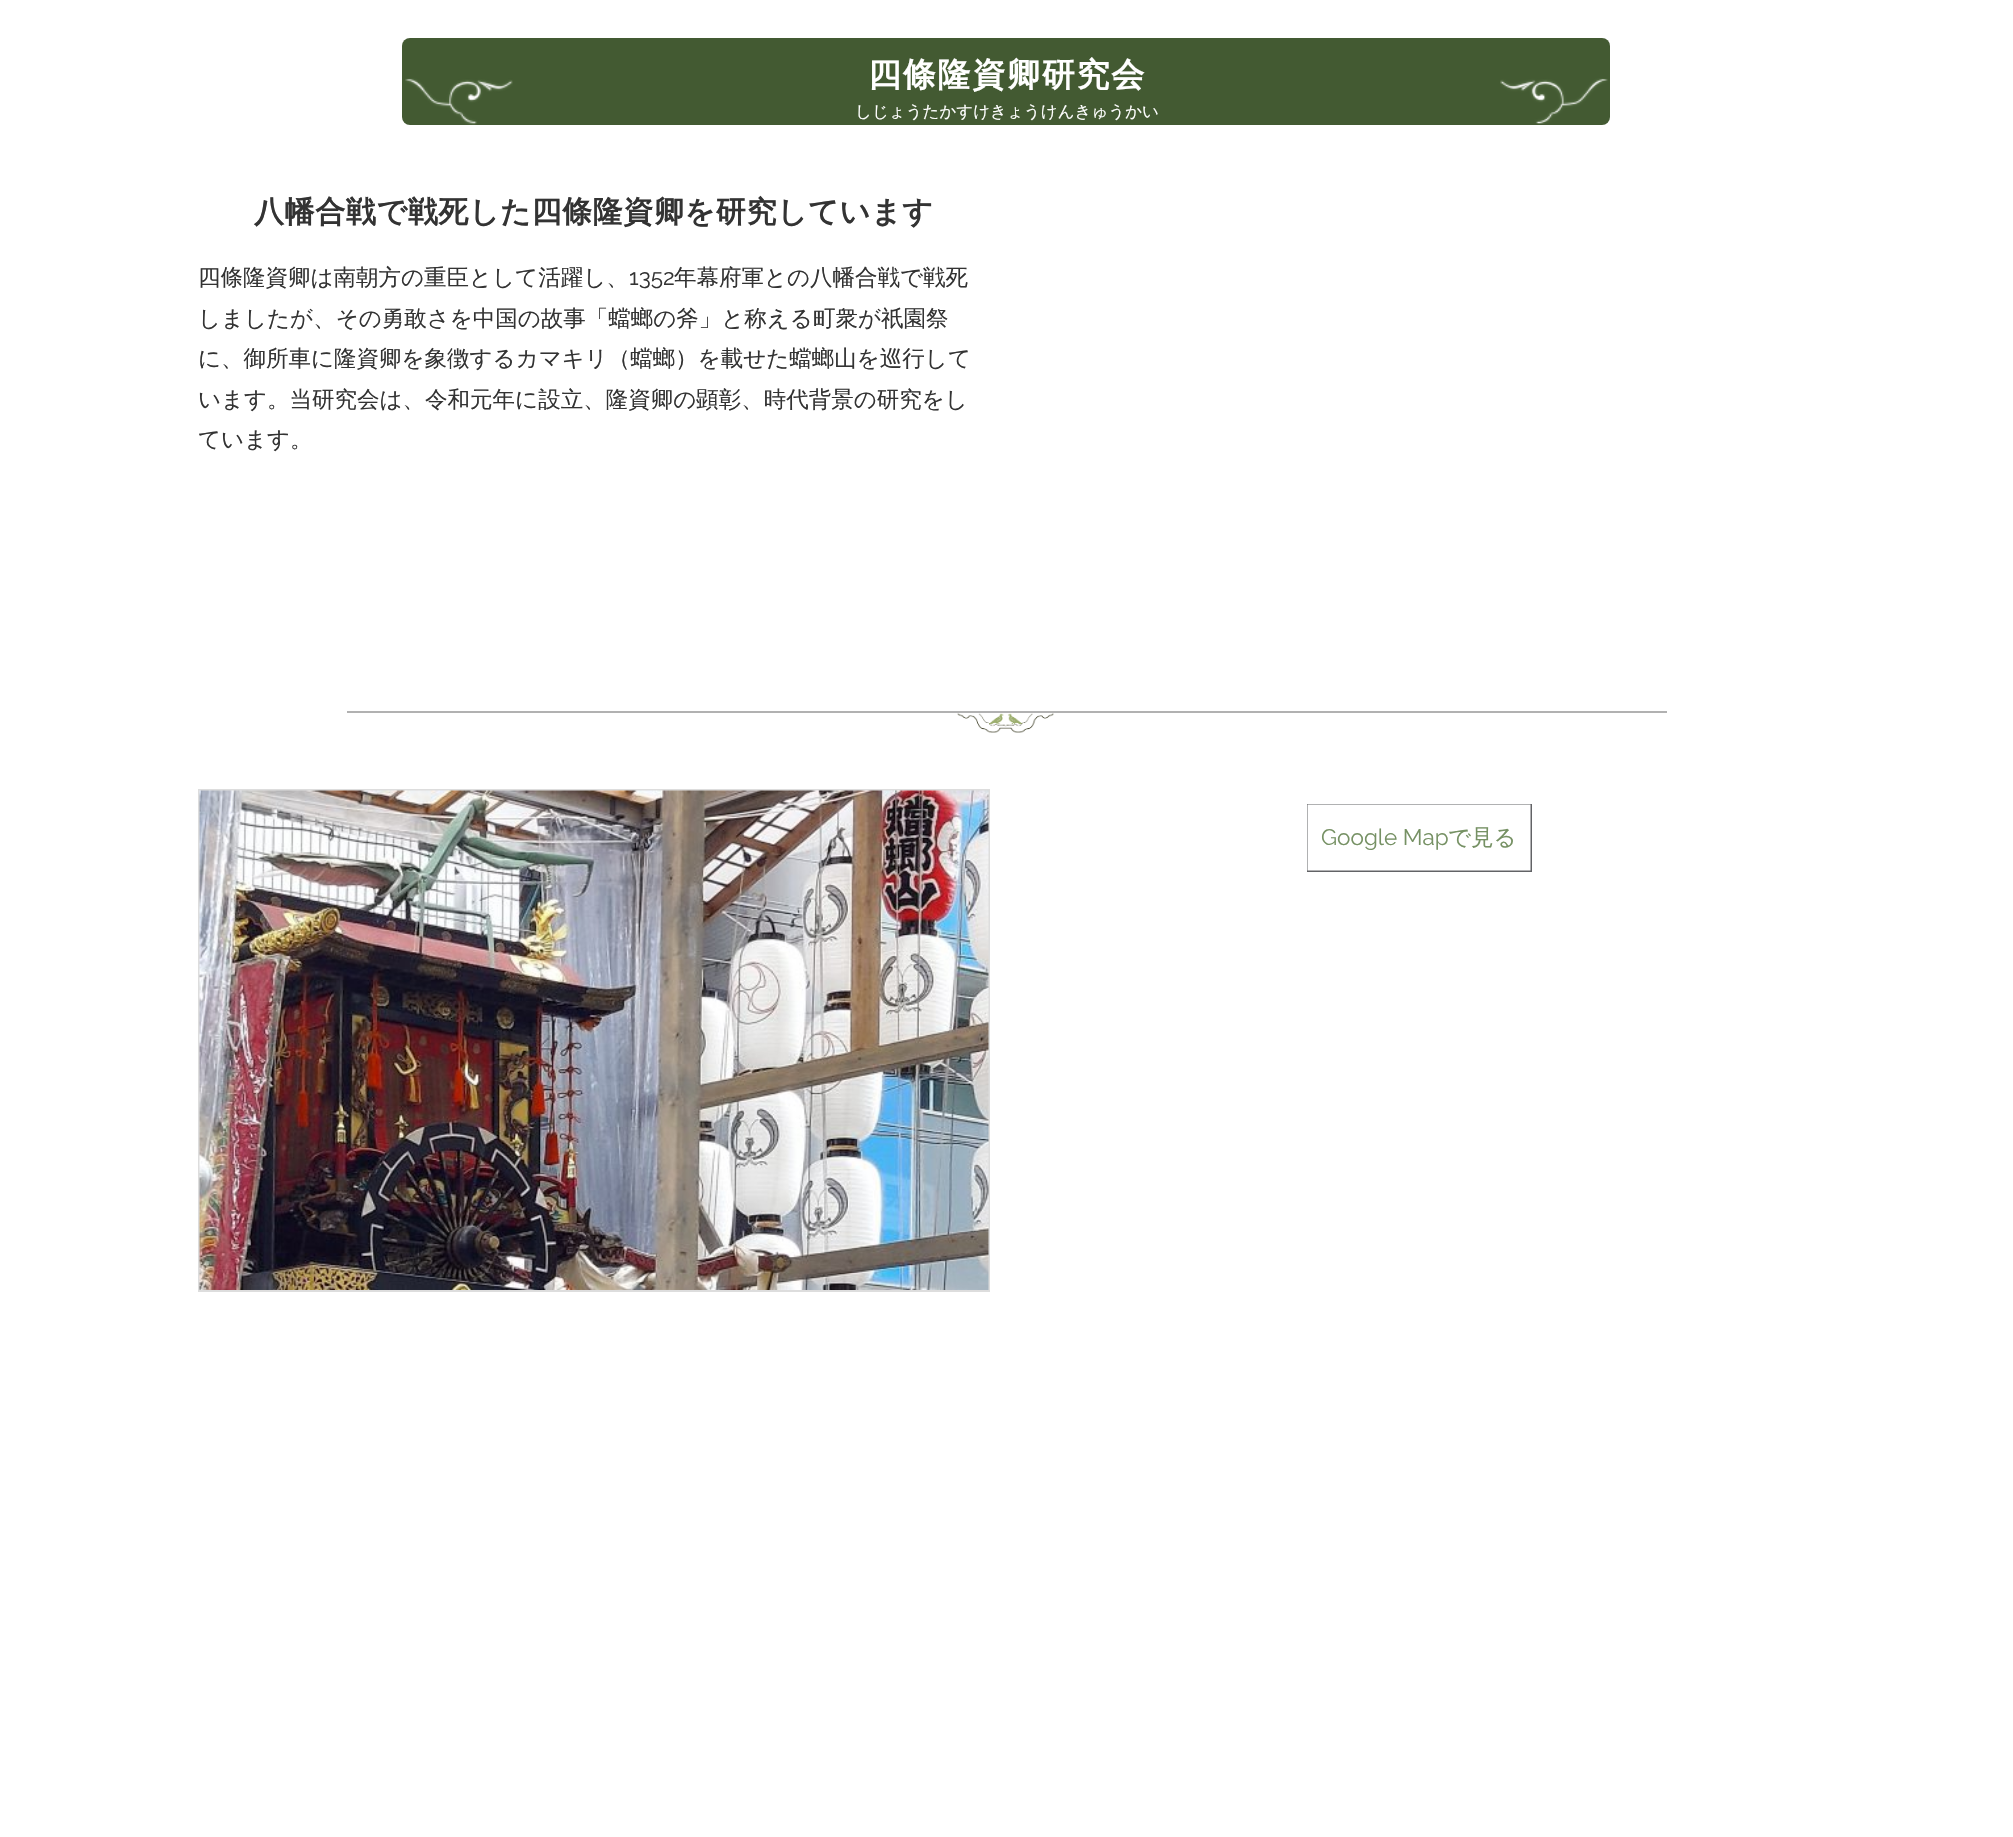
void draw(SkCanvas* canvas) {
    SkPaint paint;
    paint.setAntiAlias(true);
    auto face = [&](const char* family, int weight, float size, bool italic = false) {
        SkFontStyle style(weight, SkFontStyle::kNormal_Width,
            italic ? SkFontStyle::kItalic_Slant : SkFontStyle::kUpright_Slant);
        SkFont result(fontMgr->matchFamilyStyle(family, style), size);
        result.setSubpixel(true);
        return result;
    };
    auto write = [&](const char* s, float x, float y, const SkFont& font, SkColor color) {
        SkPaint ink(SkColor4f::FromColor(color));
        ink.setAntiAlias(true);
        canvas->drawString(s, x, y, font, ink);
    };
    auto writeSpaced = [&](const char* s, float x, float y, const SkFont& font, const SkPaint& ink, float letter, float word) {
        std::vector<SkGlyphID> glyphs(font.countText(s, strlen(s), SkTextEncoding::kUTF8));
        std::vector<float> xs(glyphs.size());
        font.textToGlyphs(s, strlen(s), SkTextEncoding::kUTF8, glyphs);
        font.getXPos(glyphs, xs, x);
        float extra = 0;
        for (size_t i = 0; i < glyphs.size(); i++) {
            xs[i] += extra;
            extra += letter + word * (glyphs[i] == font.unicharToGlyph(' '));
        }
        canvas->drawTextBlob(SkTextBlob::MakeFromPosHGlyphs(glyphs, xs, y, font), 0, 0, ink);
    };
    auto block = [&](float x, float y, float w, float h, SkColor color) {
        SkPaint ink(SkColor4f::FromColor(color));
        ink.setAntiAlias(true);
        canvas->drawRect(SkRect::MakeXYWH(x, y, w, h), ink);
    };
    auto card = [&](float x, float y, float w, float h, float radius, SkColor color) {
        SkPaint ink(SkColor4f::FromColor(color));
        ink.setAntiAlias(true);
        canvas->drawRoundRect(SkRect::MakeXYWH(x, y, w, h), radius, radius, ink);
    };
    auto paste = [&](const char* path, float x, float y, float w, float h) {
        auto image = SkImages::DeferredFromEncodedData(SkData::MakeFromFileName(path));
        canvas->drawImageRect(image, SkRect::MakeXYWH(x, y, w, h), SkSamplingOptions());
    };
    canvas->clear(SK_ColorWHITE);
    card(402, 38, 1208, 87, 8, SkColorSetRGB(67, 90, 50));
    paste("pic1.png", 405, 78, 108, 47);
    auto kFont1 = face("WenQuanYi Zen Hei", 700, 33);
    paint.setColor(SK_ColorWHITE);
    writeSpaced("四條隆資卿研究会", 868, 86, kFont1, paint, 1.75f, 0);
    auto kFont2 = face("WenQuanYi Zen Hei", 500, 16.5f);
    write("しじょうたかすけきょうけんきゅうかい", 855, 117, kFont2, SK_ColorWHITE);
    paste("pic2.png", 1500, 78, 108, 46);
    auto kFont3 = face("WenQuanYi Zen Hei", 700, 30);
    paint.setColor(SkColorSetRGB(51, 51, 51));
    writeSpaced("八幡合戦で戦死した四條隆資卿を研究しています", 254, 222, kFont3, paint, 0.6f, 0);
    auto kFont4 = face("WenQuanYi Zen Hei", 500, 22.5f);
    write("四條隆資卿は南朝方の重臣として活躍し、", 198, 285, kFont4, SkColorSetRGB(51, 51, 51));
    auto kFont5 = face("Raleway", 400, 22.5f);
    write("1352", 629, 285, kFont5, SkColorSetRGB(51, 51, 51));
    write("年幕府軍との八幡合戦で戦死", 674, 285, kFont4, SkColorSetRGB(51, 51, 51));
    write("しましたが、その勇敢さを中国の故事「蟷螂の斧」と称える町衆が祇園祭", 198, 326, kFont4, SkColorSetRGB(51, 51, 51));
    write("に、御所車に隆資卿を象徴するカマキリ（蟷螂）を載せた蟷螂山を巡行して", 198, 366, kFont4, SkColorSetRGB(51, 51, 51));
    write("います。当研究会は、令和元年に設立、隆資卿の顕彰、時代背景の研究をし", 198, 407, kFont4, SkColorSetRGB(51, 51, 51));
    write("ています。", 198, 447, kFont4, SkColorSetRGB(51, 51, 51));
    block(347, 711, 1320, 2, SkColorSetRGB(177, 177, 177));
    paste("pic3.png", 957, 713, 97, 20);
    paint.setStyle(SkPaint::kStroke_Style);
    paint.setStrokeWidth(2);
    paint.setColor(SkColorSetRGB(221, 221, 221));
    canvas->drawRect(SkRect::MakeXYWH(199, 790, 790, 501), paint);
    paste("pic4.png", 199, 790, 790, 500);
    canvas->save();
    canvas->clipRect(SkRect::MakeXYWH(1307, 804, 225, 68));
    paint.setStrokeWidth(1.5f);
    paint.setColor(SkColorSetRGB(98, 99, 102));
    canvas->drawRect(SkRect::MakeXYWH(1306.75f, 803.75f, 224.5f, 67.5f), paint);
    canvas->restore();
    write("Google Map", 1321, 845, kFont5, SkColorSetRGB(118, 145, 100));
    write("で見る", 1448, 845, kFont4, SkColorSetRGB(118, 145, 100));
}
